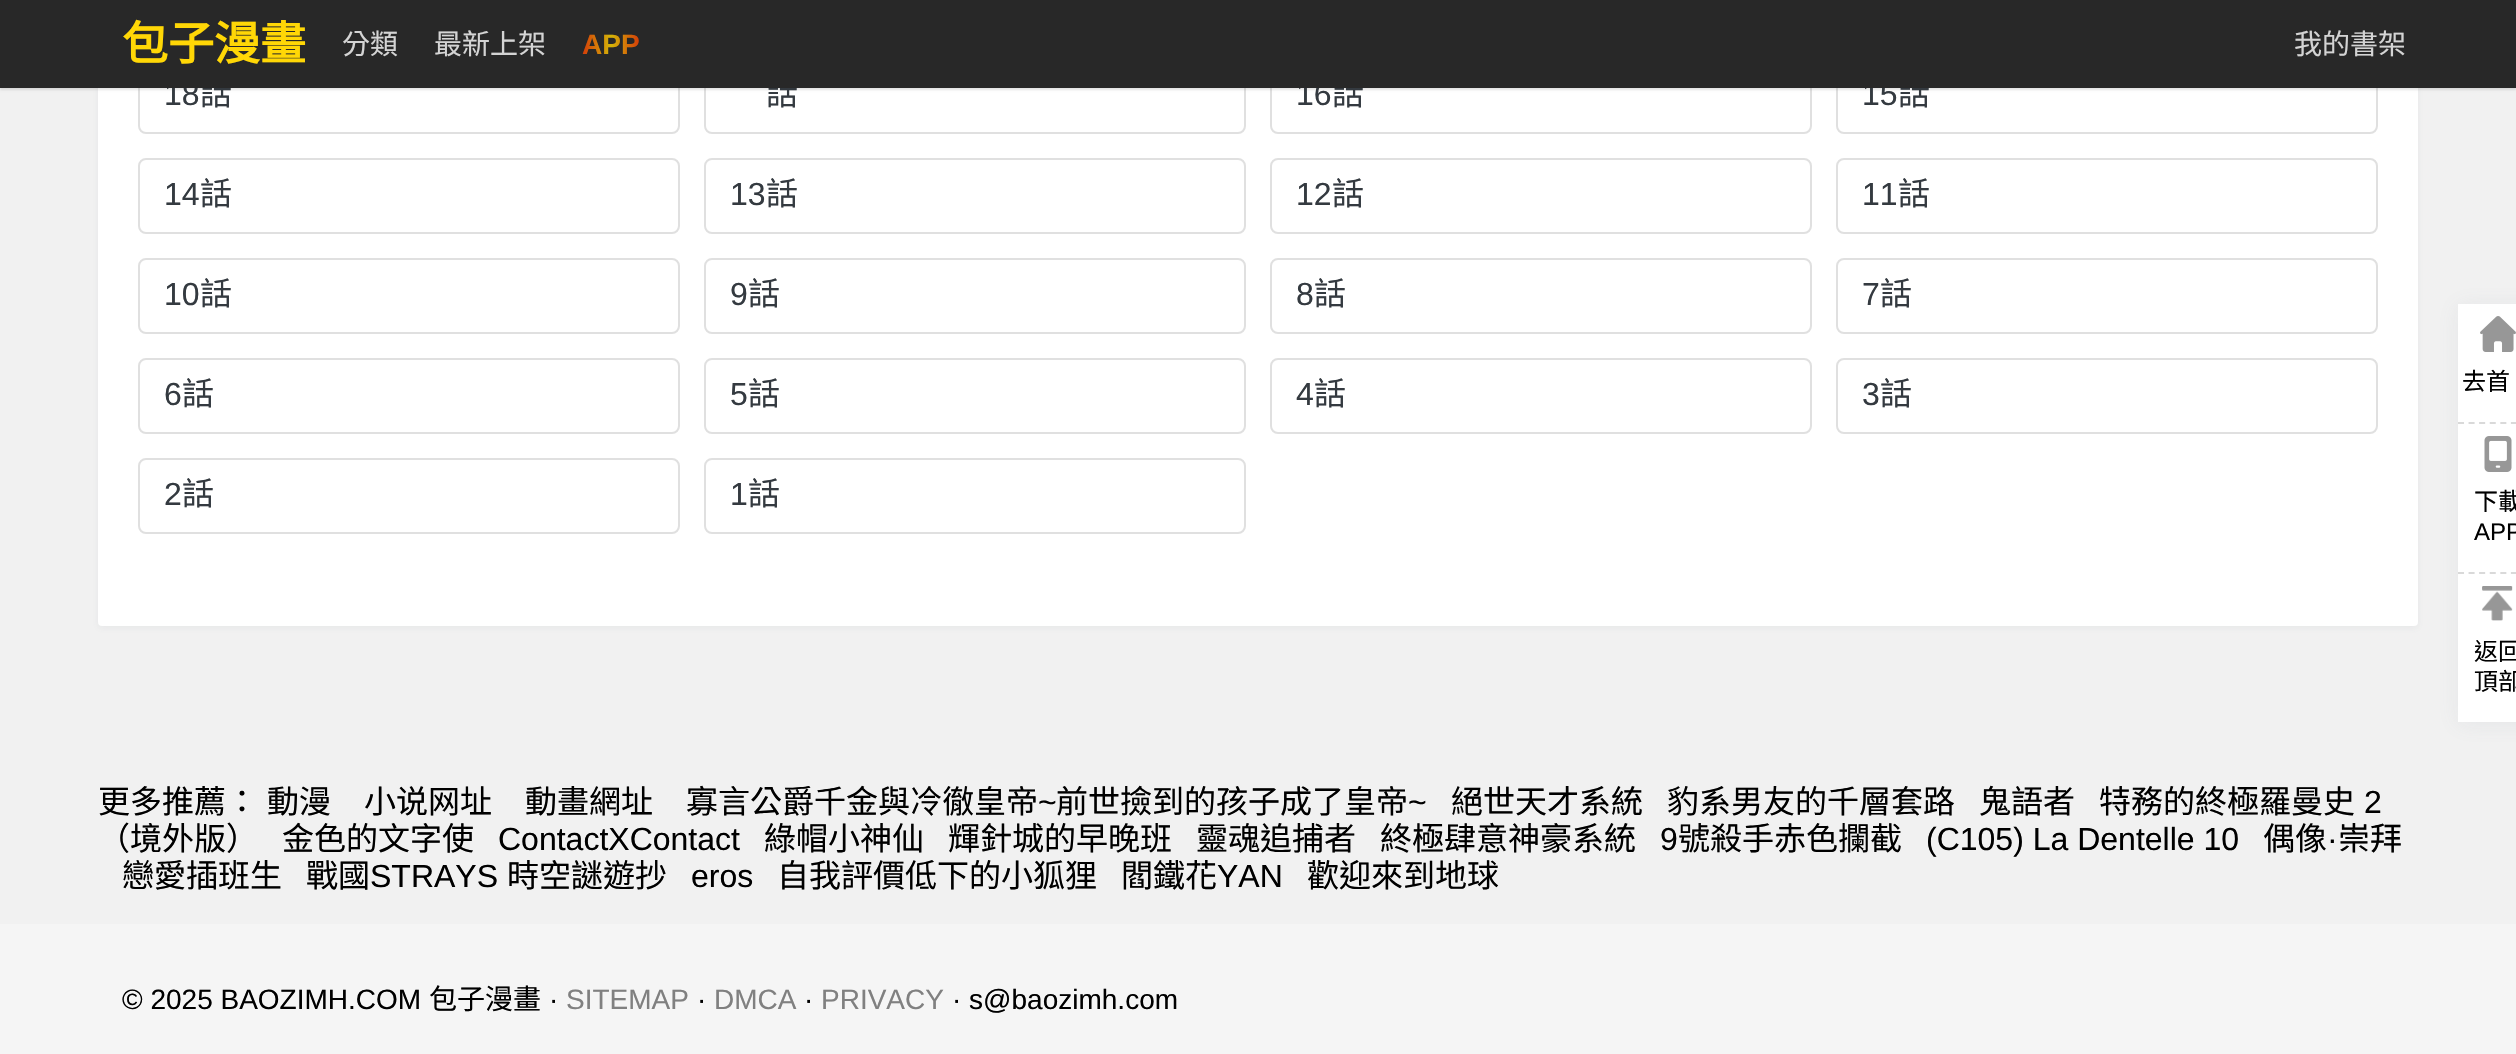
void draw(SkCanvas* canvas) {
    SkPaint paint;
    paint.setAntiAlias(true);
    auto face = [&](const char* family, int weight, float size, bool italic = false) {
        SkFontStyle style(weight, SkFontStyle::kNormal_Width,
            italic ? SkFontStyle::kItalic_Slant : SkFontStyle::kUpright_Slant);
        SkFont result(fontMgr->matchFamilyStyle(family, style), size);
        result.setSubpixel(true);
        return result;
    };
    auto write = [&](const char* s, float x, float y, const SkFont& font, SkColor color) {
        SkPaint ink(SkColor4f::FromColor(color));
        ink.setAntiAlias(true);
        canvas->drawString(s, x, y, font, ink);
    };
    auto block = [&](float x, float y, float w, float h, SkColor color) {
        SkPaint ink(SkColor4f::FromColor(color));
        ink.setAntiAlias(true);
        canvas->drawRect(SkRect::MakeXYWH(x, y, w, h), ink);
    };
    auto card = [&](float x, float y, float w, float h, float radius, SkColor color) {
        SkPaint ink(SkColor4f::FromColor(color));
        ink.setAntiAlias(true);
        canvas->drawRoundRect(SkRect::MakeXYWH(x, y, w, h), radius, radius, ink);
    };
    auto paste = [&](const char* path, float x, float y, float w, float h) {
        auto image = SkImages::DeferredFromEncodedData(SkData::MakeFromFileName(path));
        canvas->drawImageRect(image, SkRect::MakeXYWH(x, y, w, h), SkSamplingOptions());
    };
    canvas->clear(SkColorSetRGB(241, 241, 241));
    paint.setColor(SkColorSetARGB(20, 106, 115, 133));
    paint.setMaskFilter(SkMaskFilter::MakeBlur(kNormal_SkBlurStyle, 3));
    canvas->drawRoundRect(SkRect::MakeXYWH(98, -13, 2320, 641), 4, 4, paint);
    paint.setMaskFilter(nullptr);
    card(98, -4, 2320, 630, 4, SK_ColorWHITE);
    paint.setStyle(SkPaint::kStroke_Style);
    paint.setStrokeWidth(2);
    paint.setColor(SkColorSetRGB(224, 224, 224));
    canvas->drawRoundRect(SkRect::MakeXYWH(139, 59, 540, 74), 7, 7, paint);
    canvas->drawRoundRect(SkRect::MakeXYWH(705, 59, 540, 74), 7, 7, paint);
    canvas->drawRoundRect(SkRect::MakeXYWH(1271, 59, 540, 74), 7, 7, paint);
    canvas->drawRoundRect(SkRect::MakeXYWH(1837, 59, 540, 74), 7, 7, paint);
    paint.setStyle(SkPaint::kFill_Style);
    paint.setColor(SkColorSetARGB(26, 0, 0, 0));
    paint.setMaskFilter(SkMaskFilter::MakeBlur(kNormal_SkBlurStyle, 1));
    canvas->drawRect(SkRect::MakeXYWH(0, 2, 2516, 88), paint);
    paint.setMaskFilter(nullptr);
    auto kFont1 = face("Liberation Sans", 400, 32);
    write("18", 164, 105, kFont1, SkColorSetRGB(52, 58, 64));
    auto kFont2 = face("Noto Sans CJK TC", 400, 32);
    write("話", 200, 105, kFont2, SkColorSetRGB(52, 58, 64));
    write("話", 766, 105, kFont2, SkColorSetRGB(52, 58, 64));
    write("16", 1296, 105, kFont1, SkColorSetRGB(52, 58, 64));
    write("話", 1332, 105, kFont2, SkColorSetRGB(52, 58, 64));
    write("15", 1862, 105, kFont1, SkColorSetRGB(52, 58, 64));
    write("話", 1898, 105, kFont2, SkColorSetRGB(52, 58, 64));
    block(0, 0, 2516, 88, SkColorSetRGB(40, 40, 40));
    auto kFont3 = face("Noto Sans CJK TC", 700, 46);
    write("包子漫畫", 122, 60, kFont3, SkColorSetRGB(255, 215, 6));
    auto kFont4 = face("Noto Sans CJK TC", 400, 28);
    write("分類", 342, 54, kFont4, SkColorSetRGB(212, 212, 212));
    write("最新上架", 434, 54, kFont4, SkColorSetRGB(212, 212, 212));
    auto kFont5 = face("Liberation Sans", 700, 28);
    {
        const SkColor colors[] = {SkColorSetRGB(212, 8, 8), SkColorSetRGB(212, 180, 8), SkColorSetRGB(212, 8, 8)};
        const float stops[] = {0, 0.5f, 1};
        const SkPoint ends[] = {{570, 44}, {652, 44}};
        paint.setShader(SkGradientShader::MakeLinear(ends, colors, stops, 3, SkTileMode::kClamp));
        paint.setAlpha(255);
    }
    canvas->drawString("APP", 582, 54, kFont5, paint);
    write("我的書架", 2294, 54, kFont4, SkColorSetRGB(212, 212, 212));
    paint.setStyle(SkPaint::kStroke_Style);
    paint.setShader(nullptr);
    paint.setColor(SkColorSetRGB(224, 224, 224));
    canvas->drawRoundRect(SkRect::MakeXYWH(139, 159, 540, 74), 7, 7, paint);
    write("14", 164, 205, kFont1, SkColorSetRGB(52, 58, 64));
    write("話", 200, 205, kFont2, SkColorSetRGB(52, 58, 64));
    canvas->drawRoundRect(SkRect::MakeXYWH(705, 159, 540, 74), 7, 7, paint);
    write("13", 730, 205, kFont1, SkColorSetRGB(52, 58, 64));
    write("話", 766, 205, kFont2, SkColorSetRGB(52, 58, 64));
    canvas->drawRoundRect(SkRect::MakeXYWH(1271, 159, 540, 74), 7, 7, paint);
    write("12", 1296, 205, kFont1, SkColorSetRGB(52, 58, 64));
    write("話", 1332, 205, kFont2, SkColorSetRGB(52, 58, 64));
    canvas->drawRoundRect(SkRect::MakeXYWH(1837, 159, 540, 74), 7, 7, paint);
    write("11", 1862, 205, kFont1, SkColorSetRGB(52, 58, 64));
    write("話", 1898, 205, kFont2, SkColorSetRGB(52, 58, 64));
    canvas->drawRoundRect(SkRect::MakeXYWH(139, 259, 540, 74), 7, 7, paint);
    write("10", 164, 305, kFont1, SkColorSetRGB(52, 58, 64));
    write("話", 200, 305, kFont2, SkColorSetRGB(52, 58, 64));
    canvas->drawRoundRect(SkRect::MakeXYWH(705, 259, 540, 74), 7, 7, paint);
    write("9", 730, 305, kFont1, SkColorSetRGB(52, 58, 64));
    write("話", 748, 305, kFont2, SkColorSetRGB(52, 58, 64));
    canvas->drawRoundRect(SkRect::MakeXYWH(1271, 259, 540, 74), 7, 7, paint);
    write("8", 1296, 305, kFont1, SkColorSetRGB(52, 58, 64));
    write("話", 1314, 305, kFont2, SkColorSetRGB(52, 58, 64));
    canvas->drawRoundRect(SkRect::MakeXYWH(1837, 259, 540, 74), 7, 7, paint);
    write("7", 1862, 305, kFont1, SkColorSetRGB(52, 58, 64));
    write("話", 1880, 305, kFont2, SkColorSetRGB(52, 58, 64));
    canvas->drawRoundRect(SkRect::MakeXYWH(139, 359, 540, 74), 7, 7, paint);
    write("6", 164, 405, kFont1, SkColorSetRGB(52, 58, 64));
    write("話", 182, 405, kFont2, SkColorSetRGB(52, 58, 64));
    canvas->drawRoundRect(SkRect::MakeXYWH(705, 359, 540, 74), 7, 7, paint);
    write("5", 730, 405, kFont1, SkColorSetRGB(52, 58, 64));
    write("話", 748, 405, kFont2, SkColorSetRGB(52, 58, 64));
    canvas->drawRoundRect(SkRect::MakeXYWH(1271, 359, 540, 74), 7, 7, paint);
    write("4", 1296, 405, kFont1, SkColorSetRGB(52, 58, 64));
    write("話", 1314, 405, kFont2, SkColorSetRGB(52, 58, 64));
    canvas->drawRoundRect(SkRect::MakeXYWH(1837, 359, 540, 74), 7, 7, paint);
    write("3", 1862, 405, kFont1, SkColorSetRGB(52, 58, 64));
    write("話", 1880, 405, kFont2, SkColorSetRGB(52, 58, 64));
    canvas->drawRoundRect(SkRect::MakeXYWH(139, 459, 540, 74), 7, 7, paint);
    write("2", 164, 505, kFont1, SkColorSetRGB(52, 58, 64));
    write("話", 182, 505, kFont2, SkColorSetRGB(52, 58, 64));
    canvas->drawRoundRect(SkRect::MakeXYWH(705, 459, 540, 74), 7, 7, paint);
    write("1", 730, 505, kFont1, SkColorSetRGB(52, 58, 64));
    write("話", 748, 505, kFont2, SkColorSetRGB(52, 58, 64));
    paint.setStyle(SkPaint::kFill_Style);
    paint.setColor(SkColorSetARGB(26, 106, 115, 133));
    paint.setMaskFilter(SkMaskFilter::MakeBlur(kNormal_SkBlurStyle, 10));
    canvas->drawRect(SkRect::MakeXYWH(2458, 306, 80, 418), paint);
    paint.setMaskFilter(nullptr);
    block(2458, 304, 58, 418, SK_ColorWHITE);
    paste("pic1.png", 2480, 316, 36, 36);
    auto kFont6 = face("Noto Sans CJK TC", 400, 24);
    write("去首", 2462, 390, kFont6, SK_ColorBLACK);
    paint.setStyle(SkPaint::kStroke_Style);
    paint.setColor(SkColorSetRGB(217, 217, 217));
    paint.setPathEffect(SkDashPathEffect::Make({{6, 4.58f}}, 0));
    canvas->drawPath(SkPathBuilder().moveTo(2458, 423).lineTo(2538, 423).detach(), paint);
    paint.setPathEffect(nullptr);
    paste("pic2.png", 2484, 436, 28, 36);
    write("下載", 2474, 510, kFont6, SK_ColorBLACK);
    auto kFont7 = face("Liberation Sans", 400, 24);
    write("APP", 2474, 540, kFont7, SK_ColorBLACK);
    paint.setPathEffect(SkDashPathEffect::Make({{6, 4.58f}}, 0));
    canvas->drawPath(SkPathBuilder().moveTo(2458, 573).lineTo(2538, 573).detach(), paint);
    paint.setPathEffect(nullptr);
    paste("pic3.png", 2482, 586, 31, 35);
    write("返回", 2474, 660, kFont6, SK_ColorBLACK);
    write("頂部", 2474, 690, kFont6, SK_ColorBLACK);
    write("更多推薦：", 98, 813, kFont2, SK_ColorBLACK);
    write("動漫", 267, 813, kFont2, SK_ColorBLACK);
    write("小说网址", 364, 813, kFont2, SK_ColorBLACK);
    write("動畫網址", 525, 813, kFont2, SK_ColorBLACK);
    write("寡言公爵千金與冷徹皇帝", 686, 813, kFont2, SK_ColorBLACK);
    write("~", 1038, 813, kFont1, SK_ColorBLACK);
    write("前世撿到的孩子成了皇帝", 1056, 813, kFont2, SK_ColorBLACK);
    write("~", 1408, 813, kFont1, SK_ColorBLACK);
    write("絕世天才系統", 1451, 813, kFont2, SK_ColorBLACK);
    write("豹系男友的千層套路", 1667, 813, kFont2, SK_ColorBLACK);
    write("鬼語者", 1979, 813, kFont2, SK_ColorBLACK);
    write("特務的終極羅曼史", 2099, 813, kFont2, SK_ColorBLACK);
    write("2", 2364, 813, kFont1, SK_ColorBLACK);
    write("（境外版）", 98, 850, kFont2, SK_ColorBLACK);
    write("金色的文字使", 282, 850, kFont2, SK_ColorBLACK);
    write("ContactXContact", 498, 850, kFont1, SK_ColorBLACK);
    write("綠帽小神仙", 764, 850, kFont2, SK_ColorBLACK);
    write("輝針城的早晚班", 948, 850, kFont2, SK_ColorBLACK);
    write("靈魂追捕者", 1196, 850, kFont2, SK_ColorBLACK);
    write("終極肆意神豪系統", 1380, 850, kFont2, SK_ColorBLACK);
    write("9", 1660, 850, kFont1, SK_ColorBLACK);
    write("號殺手赤色攔截", 1678, 850, kFont2, SK_ColorBLACK);
    write("(C105) La Dentelle 10", 1926, 850, kFont1, SK_ColorBLACK);
    write("偶像", 2263, 850, kFont2, SK_ColorBLACK);
    write("·", 2327, 850, kFont1, SK_ColorBLACK);
    write("崇拜", 2338, 850, kFont2, SK_ColorBLACK);
    write("戀愛插班生", 122, 887, kFont2, SK_ColorBLACK);
    write("戰國", 306, 887, kFont2, SK_ColorBLACK);
    write("STRAYS", 370, 887, kFont1, SK_ColorBLACK);
    write("時空謎遊抄", 507, 887, kFont2, SK_ColorBLACK);
    write("eros", 691, 887, kFont1, SK_ColorBLACK);
    write("自我評價低下的小狐狸", 777, 887, kFont2, SK_ColorBLACK);
    write("閻鐵花", 1121, 887, kFont2, SK_ColorBLACK);
    write("YAN", 1217, 887, kFont1, SK_ColorBLACK);
    write("歡迎來到地球", 1307, 887, kFont2, SK_ColorBLACK);
    block(0, 924, 2516, 130, SkColorSetRGB(245, 245, 245));
    auto kFont8 = face("Liberation Sans", 400, 28);
    write("© 2025 BAOZIMH.COM", 122, 1009, kFont8, SK_ColorBLACK);
    write("包子漫畫", 429, 1009, kFont4, SK_ColorBLACK);
    write("·", 549, 1009, kFont8, SK_ColorBLACK);
    write("SITEMAP", 566, 1009, kFont8, SkColorSetRGB(128, 128, 128));
    write("·", 697, 1009, kFont8, SK_ColorBLACK);
    write("DMCA", 714, 1009, kFont8, SkColorSetRGB(128, 128, 128));
    write("·", 804, 1009, kFont8, SK_ColorBLACK);
    write("PRIVACY", 821, 1009, kFont8, SkColorSetRGB(128, 128, 128));
    write("· s@baozimh.com", 952, 1009, kFont8, SK_ColorBLACK);
}
